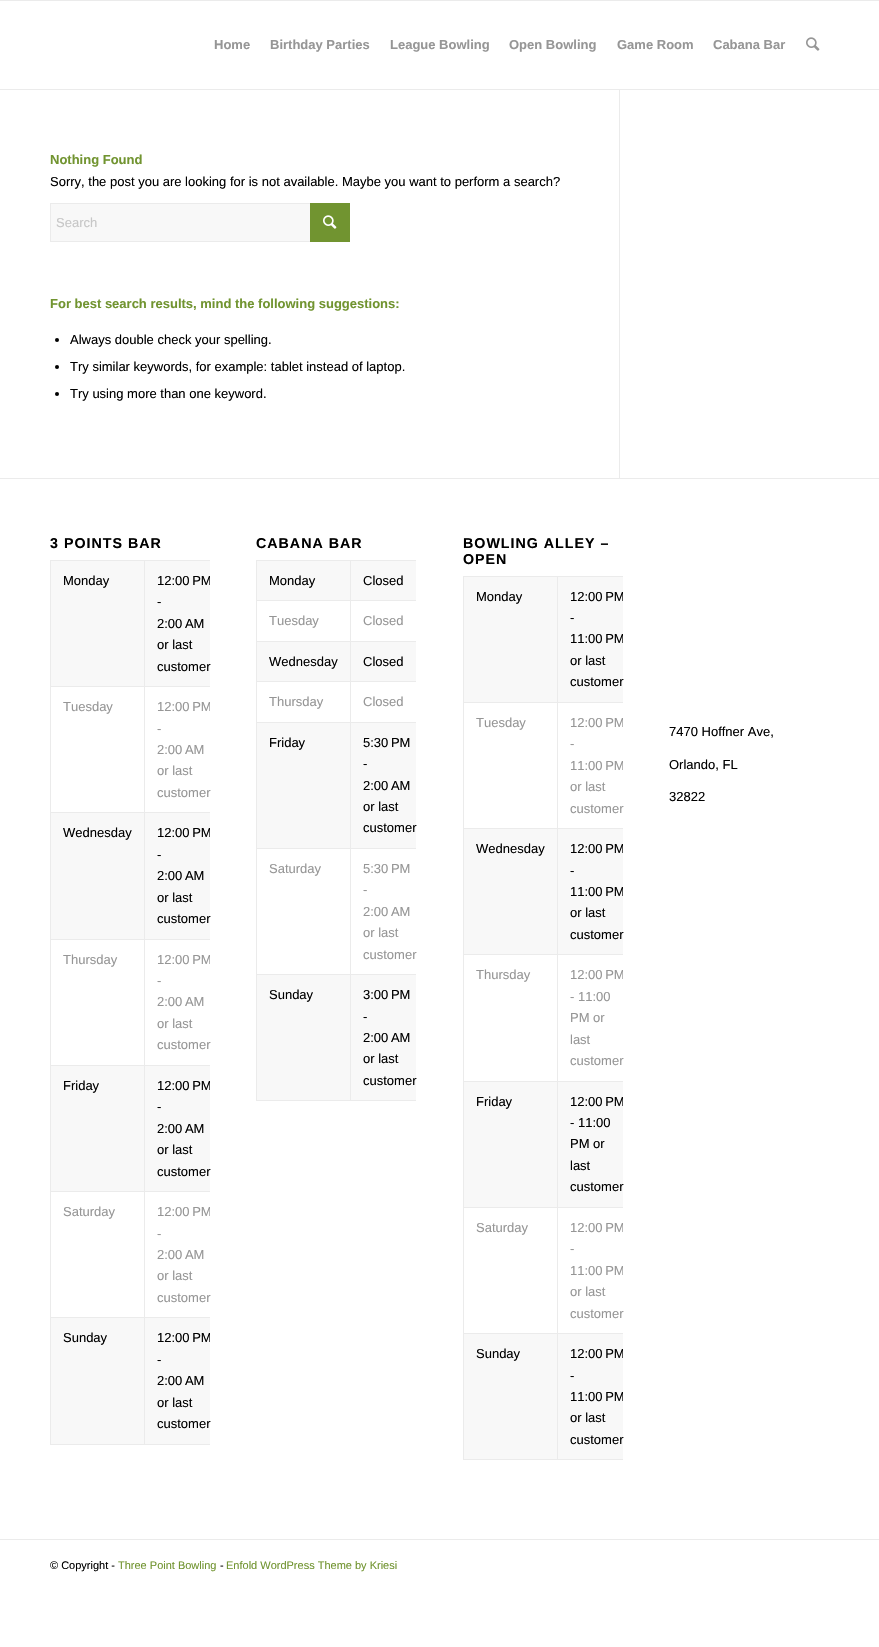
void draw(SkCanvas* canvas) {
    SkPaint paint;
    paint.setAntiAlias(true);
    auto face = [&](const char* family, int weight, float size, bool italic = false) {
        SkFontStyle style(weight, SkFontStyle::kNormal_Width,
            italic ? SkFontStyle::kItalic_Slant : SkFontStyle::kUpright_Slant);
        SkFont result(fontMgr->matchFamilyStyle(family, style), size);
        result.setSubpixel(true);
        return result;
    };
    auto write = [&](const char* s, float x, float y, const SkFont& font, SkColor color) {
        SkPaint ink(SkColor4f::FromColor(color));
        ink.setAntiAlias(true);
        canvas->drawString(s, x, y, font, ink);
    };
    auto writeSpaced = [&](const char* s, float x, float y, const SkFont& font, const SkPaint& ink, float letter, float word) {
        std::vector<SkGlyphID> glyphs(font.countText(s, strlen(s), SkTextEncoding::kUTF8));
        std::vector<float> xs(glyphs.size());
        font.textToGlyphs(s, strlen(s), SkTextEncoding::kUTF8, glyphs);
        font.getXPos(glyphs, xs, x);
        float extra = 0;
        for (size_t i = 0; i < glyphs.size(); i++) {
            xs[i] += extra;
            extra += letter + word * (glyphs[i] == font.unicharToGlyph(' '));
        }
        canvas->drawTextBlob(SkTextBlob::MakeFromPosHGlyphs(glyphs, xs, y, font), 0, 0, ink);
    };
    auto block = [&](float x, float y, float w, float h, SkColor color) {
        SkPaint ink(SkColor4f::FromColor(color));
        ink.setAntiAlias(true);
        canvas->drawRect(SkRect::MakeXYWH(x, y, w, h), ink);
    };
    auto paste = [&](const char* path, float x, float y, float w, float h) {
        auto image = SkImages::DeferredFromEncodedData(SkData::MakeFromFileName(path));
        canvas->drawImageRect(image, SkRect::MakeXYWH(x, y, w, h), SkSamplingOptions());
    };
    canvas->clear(SK_ColorWHITE);
    block(0, 0, 879, 1, SkColorSetRGB(235, 235, 235));
    block(619, 88, 1, 390, SkColorSetRGB(235, 235, 235));
    block(0, 89, 879, 1, SkColorSetRGB(235, 235, 235));
    auto kFont1 = face("Liberation Sans", 700, 13);
    write("Home", 214, 49, kFont1, SkColorSetRGB(150, 150, 150));
    write("Birthday Parties", 270, 49, kFont1, SkColorSetRGB(150, 150, 150));
    write("League Bowling", 390, 49, kFont1, SkColorSetRGB(150, 150, 150));
    write("Open Bowling", 509, 49, kFont1, SkColorSetRGB(150, 150, 150));
    write("Game Room", 617, 49, kFont1, SkColorSetRGB(150, 150, 150));
    write("Cabana Bar", 713, 49, kFont1, SkColorSetRGB(150, 150, 150));
    paste("pic1.png", 806, 37, 14, 14);
    block(619, 88, 1, 1, SK_ColorWHITE);
    write("Nothing Found", 50, 164, kFont1, SkColorSetRGB(113, 148, 48));
    auto kFont2 = face("Liberation Sans", 400, 13);
    write("Sorry, the post you are looking for is not available. Maybe you want to perform a search?", 50, 186, kFont2, SK_ColorBLACK);
    block(51, 204, 259, 37, SkColorSetRGB(248, 248, 248));
    paint.setStyle(SkPaint::kStroke_Style);
    paint.setStrokeWidth(1);
    paint.setColor(SkColorSetRGB(235, 235, 235));
    canvas->drawRect(SkRect::MakeXYWH(50.5f, 203.5f, 299, 38), paint);
    write("Search", 56, 227, kFont2, SkColorSetRGB(199, 199, 199));
    block(310, 203, 40, 39, SkColorSetRGB(113, 148, 48));
    paste("pic2.png", 323, 215, 14, 14);
    write("For best search results, mind the following suggestions:", 50, 308, kFont1, SkColorSetRGB(113, 148, 48));
    paint.setStyle(SkPaint::kFill_Style);
    paint.setColor(SK_ColorBLACK);
    canvas->drawCircle(57, 340, 2, paint);
    write("Always double check your spelling.", 70, 344, kFont2, SK_ColorBLACK);
    canvas->drawCircle(57, 367, 2, paint);
    write("Try similar keywords, for example: tablet instead of laptop.", 70, 371, kFont2, SK_ColorBLACK);
    canvas->drawCircle(57, 394, 2, paint);
    write("Try using more than one keyword.", 70, 398, kFont2, SK_ColorBLACK);
    block(0, 478, 879, 1, SkColorSetRGB(235, 235, 235));
    auto kFont3 = face("Liberation Sans", 700, 14.25f);
    writeSpaced("3 POINTS BAR", 50, 548, kFont3, paint, 1, 0);
    block(51, 561, 159, 883, SkColorSetRGB(248, 248, 248));
    block(50, 560, 160, 1, SkColorSetRGB(235, 235, 235));
    block(51, 687, 159, 125, SK_ColorWHITE);
    block(51, 940, 159, 125, SK_ColorWHITE);
    block(51, 1192, 159, 125, SK_ColorWHITE);
    block(144, 1444, 66, 1, SkColorSetRGB(235, 235, 235));
    block(144, 1317, 1, 128, SkColorSetRGB(235, 235, 235));
    block(144, 1317, 66, 1, SkColorSetRGB(235, 235, 235));
    block(144, 1191, 1, 127, SkColorSetRGB(235, 235, 235));
    block(144, 1191, 66, 1, SkColorSetRGB(235, 235, 235));
    block(144, 1065, 1, 127, SkColorSetRGB(235, 235, 235));
    block(144, 1065, 66, 1, SkColorSetRGB(235, 235, 235));
    block(144, 939, 1, 127, SkColorSetRGB(235, 235, 235));
    block(144, 939, 66, 1, SkColorSetRGB(235, 235, 235));
    block(144, 812, 1, 128, SkColorSetRGB(235, 235, 235));
    block(144, 812, 66, 1, SkColorSetRGB(235, 235, 235));
    block(144, 686, 1, 127, SkColorSetRGB(235, 235, 235));
    block(144, 686, 66, 1, SkColorSetRGB(235, 235, 235));
    block(144, 560, 1, 127, SkColorSetRGB(235, 235, 235));
    block(50, 1444, 95, 1, SkColorSetRGB(235, 235, 235));
    block(50, 1317, 1, 128, SkColorSetRGB(235, 235, 235));
    block(50, 1317, 95, 1, SkColorSetRGB(235, 235, 235));
    block(50, 1191, 1, 127, SkColorSetRGB(235, 235, 235));
    block(50, 1191, 95, 1, SkColorSetRGB(235, 235, 235));
    block(50, 1065, 1, 127, SkColorSetRGB(235, 235, 235));
    block(50, 1065, 95, 1, SkColorSetRGB(235, 235, 235));
    block(50, 939, 1, 127, SkColorSetRGB(235, 235, 235));
    block(50, 939, 95, 1, SkColorSetRGB(235, 235, 235));
    block(50, 812, 1, 128, SkColorSetRGB(235, 235, 235));
    block(50, 812, 95, 1, SkColorSetRGB(235, 235, 235));
    block(50, 686, 1, 127, SkColorSetRGB(235, 235, 235));
    block(50, 686, 95, 1, SkColorSetRGB(235, 235, 235));
    block(50, 560, 1, 127, SkColorSetRGB(235, 235, 235));
    write("Monday", 63, 585, kFont2, SK_ColorBLACK);
    canvas->save();
    canvas->clipRect(SkRect::MakeXYWH(50, 524, 160, 941));
    write("12:00 PM", 157, 585, kFont2, SK_ColorBLACK);
    canvas->restore();
    write("-", 157, 606, kFont2, SK_ColorBLACK);
    write("2:00 AM", 157, 628, kFont2, SK_ColorBLACK);
    write("or last", 157, 649, kFont2, SK_ColorBLACK);
    write("customer", 157, 671, kFont2, SK_ColorBLACK);
    write("Tuesday", 63, 711, kFont2, SkColorSetRGB(150, 150, 150));
    canvas->save();
    canvas->clipRect(SkRect::MakeXYWH(50, 524, 160, 941));
    write("12:00 PM", 157, 711, kFont2, SkColorSetRGB(150, 150, 150));
    canvas->restore();
    write("-", 157, 733, kFont2, SkColorSetRGB(150, 150, 150));
    write("2:00 AM", 157, 754, kFont2, SkColorSetRGB(150, 150, 150));
    write("or last", 157, 775, kFont2, SkColorSetRGB(150, 150, 150));
    write("customer", 157, 797, kFont2, SkColorSetRGB(150, 150, 150));
    write("Wednesday", 63, 837, kFont2, SK_ColorBLACK);
    canvas->save();
    canvas->clipRect(SkRect::MakeXYWH(50, 524, 160, 941));
    write("12:00 PM", 157, 837, kFont2, SK_ColorBLACK);
    canvas->restore();
    write("-", 157, 859, kFont2, SK_ColorBLACK);
    write("2:00 AM", 157, 880, kFont2, SK_ColorBLACK);
    write("or last", 157, 902, kFont2, SK_ColorBLACK);
    write("customer", 157, 923, kFont2, SK_ColorBLACK);
    write("Thursday", 63, 964, kFont2, SkColorSetRGB(150, 150, 150));
    canvas->save();
    canvas->clipRect(SkRect::MakeXYWH(50, 524, 160, 941));
    write("12:00 PM", 157, 964, kFont2, SkColorSetRGB(150, 150, 150));
    canvas->restore();
    write("-", 157, 985, kFont2, SkColorSetRGB(150, 150, 150));
    write("2:00 AM", 157, 1006, kFont2, SkColorSetRGB(150, 150, 150));
    write("or last", 157, 1028, kFont2, SkColorSetRGB(150, 150, 150));
    write("customer", 157, 1049, kFont2, SkColorSetRGB(150, 150, 150));
    write("Friday", 63, 1090, kFont2, SK_ColorBLACK);
    canvas->save();
    canvas->clipRect(SkRect::MakeXYWH(50, 524, 160, 941));
    write("12:00 PM", 157, 1090, kFont2, SK_ColorBLACK);
    canvas->restore();
    write("-", 157, 1111, kFont2, SK_ColorBLACK);
    write("2:00 AM", 157, 1133, kFont2, SK_ColorBLACK);
    write("or last", 157, 1154, kFont2, SK_ColorBLACK);
    write("customer", 157, 1176, kFont2, SK_ColorBLACK);
    write("Saturday", 63, 1216, kFont2, SkColorSetRGB(150, 150, 150));
    canvas->save();
    canvas->clipRect(SkRect::MakeXYWH(50, 524, 160, 941));
    write("12:00 PM", 157, 1216, kFont2, SkColorSetRGB(150, 150, 150));
    canvas->restore();
    write("-", 157, 1238, kFont2, SkColorSetRGB(150, 150, 150));
    write("2:00 AM", 157, 1259, kFont2, SkColorSetRGB(150, 150, 150));
    write("or last", 157, 1280, kFont2, SkColorSetRGB(150, 150, 150));
    write("customer", 157, 1302, kFont2, SkColorSetRGB(150, 150, 150));
    write("Sunday", 63, 1342, kFont2, SK_ColorBLACK);
    canvas->save();
    canvas->clipRect(SkRect::MakeXYWH(50, 524, 160, 941));
    write("12:00 PM", 157, 1342, kFont2, SK_ColorBLACK);
    canvas->restore();
    write("-", 157, 1364, kFont2, SK_ColorBLACK);
    write("2:00 AM", 157, 1385, kFont2, SK_ColorBLACK);
    write("or last", 157, 1407, kFont2, SK_ColorBLACK);
    write("customer", 157, 1428, kFont2, SK_ColorBLACK);
    writeSpaced("CABANA BAR", 256, 548, kFont3, paint, 1, 0);
    block(257, 561, 159, 539, SkColorSetRGB(248, 248, 248));
    block(256, 560, 160, 1, SkColorSetRGB(235, 235, 235));
    block(257, 601, 159, 40, SK_ColorWHITE);
    block(257, 682, 159, 40, SK_ColorWHITE);
    block(257, 849, 159, 125, SK_ColorWHITE);
    block(350, 1100, 66, 1, SkColorSetRGB(235, 235, 235));
    block(350, 974, 1, 127, SkColorSetRGB(235, 235, 235));
    block(350, 974, 66, 1, SkColorSetRGB(235, 235, 235));
    block(350, 848, 1, 127, SkColorSetRGB(235, 235, 235));
    block(350, 848, 66, 1, SkColorSetRGB(235, 235, 235));
    block(350, 722, 1, 127, SkColorSetRGB(235, 235, 235));
    block(350, 722, 66, 1, SkColorSetRGB(235, 235, 235));
    block(350, 681, 1, 42, SkColorSetRGB(235, 235, 235));
    block(350, 681, 66, 1, SkColorSetRGB(235, 235, 235));
    block(350, 641, 1, 41, SkColorSetRGB(235, 235, 235));
    block(350, 641, 66, 1, SkColorSetRGB(235, 235, 235));
    block(350, 600, 1, 42, SkColorSetRGB(235, 235, 235));
    block(350, 600, 66, 1, SkColorSetRGB(235, 235, 235));
    block(350, 560, 1, 41, SkColorSetRGB(235, 235, 235));
    block(256, 1100, 95, 1, SkColorSetRGB(235, 235, 235));
    block(256, 974, 1, 127, SkColorSetRGB(235, 235, 235));
    block(256, 974, 95, 1, SkColorSetRGB(235, 235, 235));
    block(256, 848, 1, 127, SkColorSetRGB(235, 235, 235));
    block(256, 848, 95, 1, SkColorSetRGB(235, 235, 235));
    block(256, 722, 1, 127, SkColorSetRGB(235, 235, 235));
    block(256, 722, 95, 1, SkColorSetRGB(235, 235, 235));
    block(256, 681, 1, 42, SkColorSetRGB(235, 235, 235));
    block(256, 681, 95, 1, SkColorSetRGB(235, 235, 235));
    block(256, 641, 1, 41, SkColorSetRGB(235, 235, 235));
    block(256, 641, 95, 1, SkColorSetRGB(235, 235, 235));
    block(256, 600, 1, 42, SkColorSetRGB(235, 235, 235));
    block(256, 600, 95, 1, SkColorSetRGB(235, 235, 235));
    block(256, 560, 1, 41, SkColorSetRGB(235, 235, 235));
    write("Monday", 269, 585, kFont2, SK_ColorBLACK);
    write("Closed", 363, 585, kFont2, SK_ColorBLACK);
    write("Tuesday", 269, 625, kFont2, SkColorSetRGB(150, 150, 150));
    write("Closed", 363, 625, kFont2, SkColorSetRGB(150, 150, 150));
    write("Wednesday", 269, 666, kFont2, SK_ColorBLACK);
    write("Closed", 363, 666, kFont2, SK_ColorBLACK);
    write("Thursday", 269, 706, kFont2, SkColorSetRGB(150, 150, 150));
    write("Closed", 363, 706, kFont2, SkColorSetRGB(150, 150, 150));
    write("Friday", 269, 747, kFont2, SK_ColorBLACK);
    write("5:30 PM", 363, 747, kFont2, SK_ColorBLACK);
    write("-", 363, 768, kFont2, SK_ColorBLACK);
    write("2:00 AM", 363, 790, kFont2, SK_ColorBLACK);
    write("or last", 363, 811, kFont2, SK_ColorBLACK);
    write("customer", 363, 832, kFont2, SK_ColorBLACK);
    write("Saturday", 269, 873, kFont2, SkColorSetRGB(150, 150, 150));
    write("5:30 PM", 363, 873, kFont2, SkColorSetRGB(150, 150, 150));
    write("-", 363, 894, kFont2, SkColorSetRGB(150, 150, 150));
    write("2:00 AM", 363, 916, kFont2, SkColorSetRGB(150, 150, 150));
    write("or last", 363, 937, kFont2, SkColorSetRGB(150, 150, 150));
    write("customer", 363, 959, kFont2, SkColorSetRGB(150, 150, 150));
    write("Sunday", 269, 999, kFont2, SK_ColorBLACK);
    write("3:00 PM", 363, 999, kFont2, SK_ColorBLACK);
    write("-", 363, 1021, kFont2, SK_ColorBLACK);
    write("2:00 AM", 363, 1042, kFont2, SK_ColorBLACK);
    write("or last", 363, 1063, kFont2, SK_ColorBLACK);
    write("customer", 363, 1085, kFont2, SK_ColorBLACK);
    writeSpaced("BOWLING ALLEY –", 463, 548, kFont3, paint, 1, 0);
    writeSpaced("OPEN", 463, 564, kFont3, paint, 1, 0);
    block(464, 577, 159, 882, SkColorSetRGB(248, 248, 248));
    block(463, 576, 160, 1, SkColorSetRGB(235, 235, 235));
    block(464, 703, 159, 125, SK_ColorWHITE);
    block(464, 955, 159, 126, SK_ColorWHITE);
    block(464, 1208, 159, 125, SK_ColorWHITE);
    block(557, 1459, 66, 1, SkColorSetRGB(235, 235, 235));
    block(557, 1333, 1, 127, SkColorSetRGB(235, 235, 235));
    block(557, 1333, 66, 1, SkColorSetRGB(235, 235, 235));
    block(557, 1207, 1, 127, SkColorSetRGB(235, 235, 235));
    block(557, 1207, 66, 1, SkColorSetRGB(235, 235, 235));
    block(557, 1081, 1, 127, SkColorSetRGB(235, 235, 235));
    block(557, 1081, 66, 1, SkColorSetRGB(235, 235, 235));
    block(557, 954, 1, 128, SkColorSetRGB(235, 235, 235));
    block(557, 954, 66, 1, SkColorSetRGB(235, 235, 235));
    block(557, 828, 1, 127, SkColorSetRGB(235, 235, 235));
    block(557, 828, 66, 1, SkColorSetRGB(235, 235, 235));
    block(557, 702, 1, 127, SkColorSetRGB(235, 235, 235));
    block(557, 702, 66, 1, SkColorSetRGB(235, 235, 235));
    block(557, 576, 1, 127, SkColorSetRGB(235, 235, 235));
    block(463, 1459, 95, 1, SkColorSetRGB(235, 235, 235));
    block(463, 1333, 1, 127, SkColorSetRGB(235, 235, 235));
    block(463, 1333, 95, 1, SkColorSetRGB(235, 235, 235));
    block(463, 1207, 1, 127, SkColorSetRGB(235, 235, 235));
    block(463, 1207, 95, 1, SkColorSetRGB(235, 235, 235));
    block(463, 1081, 1, 127, SkColorSetRGB(235, 235, 235));
    block(463, 1081, 95, 1, SkColorSetRGB(235, 235, 235));
    block(463, 954, 1, 128, SkColorSetRGB(235, 235, 235));
    block(463, 954, 95, 1, SkColorSetRGB(235, 235, 235));
    block(463, 828, 1, 127, SkColorSetRGB(235, 235, 235));
    block(463, 828, 95, 1, SkColorSetRGB(235, 235, 235));
    block(463, 702, 1, 127, SkColorSetRGB(235, 235, 235));
    block(463, 702, 95, 1, SkColorSetRGB(235, 235, 235));
    block(463, 576, 1, 127, SkColorSetRGB(235, 235, 235));
    write("Monday", 476, 601, kFont2, SK_ColorBLACK);
    canvas->save();
    canvas->clipRect(SkRect::MakeXYWH(463, 524, 160, 956));
    write("12:00 PM", 570, 601, kFont2, SK_ColorBLACK);
    canvas->restore();
    write("-", 570, 622, kFont2, SK_ColorBLACK);
    canvas->save();
    canvas->clipRect(SkRect::MakeXYWH(463, 524, 160, 956));
    write("11:00 PM", 570, 643, kFont2, SK_ColorBLACK);
    canvas->restore();
    write("or last", 570, 665, kFont2, SK_ColorBLACK);
    write("customer", 570, 686, kFont2, SK_ColorBLACK);
    write("Tuesday", 476, 727, kFont2, SkColorSetRGB(150, 150, 150));
    canvas->save();
    canvas->clipRect(SkRect::MakeXYWH(463, 524, 160, 956));
    write("12:00 PM", 570, 727, kFont2, SkColorSetRGB(150, 150, 150));
    canvas->restore();
    write("-", 570, 748, kFont2, SkColorSetRGB(150, 150, 150));
    canvas->save();
    canvas->clipRect(SkRect::MakeXYWH(463, 524, 160, 956));
    write("11:00 PM", 570, 770, kFont2, SkColorSetRGB(150, 150, 150));
    canvas->restore();
    write("or last", 570, 791, kFont2, SkColorSetRGB(150, 150, 150));
    write("customer", 570, 813, kFont2, SkColorSetRGB(150, 150, 150));
    write("Wednesday", 476, 853, kFont2, SK_ColorBLACK);
    canvas->save();
    canvas->clipRect(SkRect::MakeXYWH(463, 524, 160, 956));
    write("12:00 PM", 570, 853, kFont2, SK_ColorBLACK);
    canvas->restore();
    write("-", 570, 875, kFont2, SK_ColorBLACK);
    canvas->save();
    canvas->clipRect(SkRect::MakeXYWH(463, 524, 160, 956));
    write("11:00 PM", 570, 896, kFont2, SK_ColorBLACK);
    canvas->restore();
    write("or last", 570, 917, kFont2, SK_ColorBLACK);
    write("customer", 570, 939, kFont2, SK_ColorBLACK);
    write("Thursday", 476, 979, kFont2, SkColorSetRGB(150, 150, 150));
    canvas->save();
    canvas->clipRect(SkRect::MakeXYWH(463, 524, 160, 956));
    write("12:00 PM", 570, 979, kFont2, SkColorSetRGB(150, 150, 150));
    canvas->restore();
    write("- 11:00", 570, 1001, kFont2, SkColorSetRGB(150, 150, 150));
    write("PM or", 570, 1022, kFont2, SkColorSetRGB(150, 150, 150));
    write("last", 570, 1044, kFont2, SkColorSetRGB(150, 150, 150));
    write("customer", 570, 1065, kFont2, SkColorSetRGB(150, 150, 150));
    write("Friday", 476, 1106, kFont2, SK_ColorBLACK);
    canvas->save();
    canvas->clipRect(SkRect::MakeXYWH(463, 524, 160, 956));
    write("12:00 PM", 570, 1106, kFont2, SK_ColorBLACK);
    canvas->restore();
    write("- 11:00", 570, 1127, kFont2, SK_ColorBLACK);
    write("PM or", 570, 1148, kFont2, SK_ColorBLACK);
    write("last", 570, 1170, kFont2, SK_ColorBLACK);
    write("customer", 570, 1191, kFont2, SK_ColorBLACK);
    write("Saturday", 476, 1232, kFont2, SkColorSetRGB(150, 150, 150));
    canvas->save();
    canvas->clipRect(SkRect::MakeXYWH(463, 524, 160, 956));
    write("12:00 PM", 570, 1232, kFont2, SkColorSetRGB(150, 150, 150));
    canvas->restore();
    write("-", 570, 1253, kFont2, SkColorSetRGB(150, 150, 150));
    canvas->save();
    canvas->clipRect(SkRect::MakeXYWH(463, 524, 160, 956));
    write("11:00 PM", 570, 1275, kFont2, SkColorSetRGB(150, 150, 150));
    canvas->restore();
    write("or last", 570, 1296, kFont2, SkColorSetRGB(150, 150, 150));
    write("customer", 570, 1318, kFont2, SkColorSetRGB(150, 150, 150));
    write("Sunday", 476, 1358, kFont2, SK_ColorBLACK);
    canvas->save();
    canvas->clipRect(SkRect::MakeXYWH(463, 524, 160, 956));
    write("12:00 PM", 570, 1358, kFont2, SK_ColorBLACK);
    canvas->restore();
    write("-", 570, 1380, kFont2, SK_ColorBLACK);
    canvas->save();
    canvas->clipRect(SkRect::MakeXYWH(463, 524, 160, 956));
    write("11:00 PM", 570, 1401, kFont2, SK_ColorBLACK);
    canvas->restore();
    write("or last", 570, 1422, kFont2, SK_ColorBLACK);
    write("customer", 570, 1444, kFont2, SK_ColorBLACK);
    write("7470 Hoffner Ave,", 669, 736, kFont2, SK_ColorBLACK);
    write("Orlando, FL", 669, 769, kFont2, SK_ColorBLACK);
    write("32822", 669, 801, kFont2, SK_ColorBLACK);
    block(0, 1539, 879, 1, SkColorSetRGB(235, 235, 235));
    auto kFont4 = face("Liberation Sans", 400, 11);
    write("© Copyright -", 50, 1569, kFont4, SK_ColorBLACK);
    write("Three Point Bowling", 118, 1569, kFont4, SkColorSetRGB(113, 148, 48));
    write("-", 220, 1569, kFont4, SK_ColorBLACK);
    write("Enfold WordPress Theme by Kriesi", 226, 1569, kFont4, SkColorSetRGB(113, 148, 48));
}
